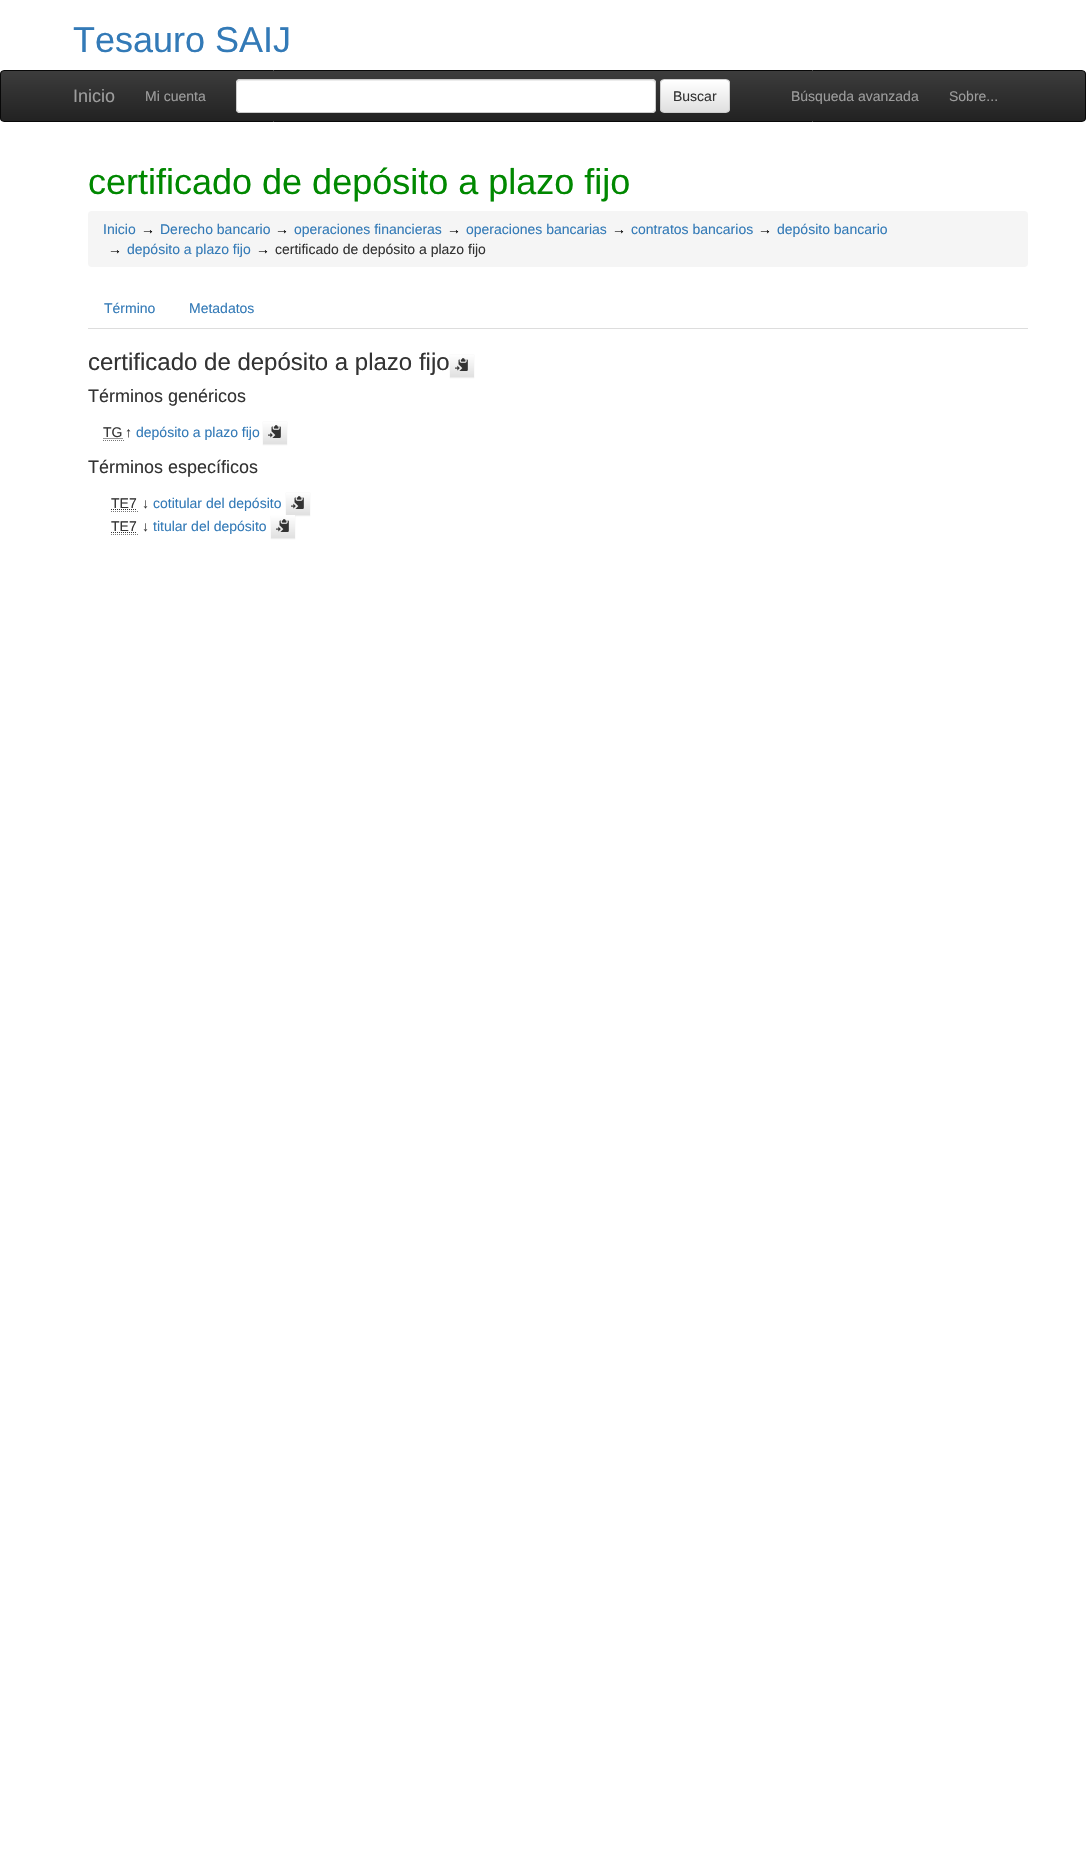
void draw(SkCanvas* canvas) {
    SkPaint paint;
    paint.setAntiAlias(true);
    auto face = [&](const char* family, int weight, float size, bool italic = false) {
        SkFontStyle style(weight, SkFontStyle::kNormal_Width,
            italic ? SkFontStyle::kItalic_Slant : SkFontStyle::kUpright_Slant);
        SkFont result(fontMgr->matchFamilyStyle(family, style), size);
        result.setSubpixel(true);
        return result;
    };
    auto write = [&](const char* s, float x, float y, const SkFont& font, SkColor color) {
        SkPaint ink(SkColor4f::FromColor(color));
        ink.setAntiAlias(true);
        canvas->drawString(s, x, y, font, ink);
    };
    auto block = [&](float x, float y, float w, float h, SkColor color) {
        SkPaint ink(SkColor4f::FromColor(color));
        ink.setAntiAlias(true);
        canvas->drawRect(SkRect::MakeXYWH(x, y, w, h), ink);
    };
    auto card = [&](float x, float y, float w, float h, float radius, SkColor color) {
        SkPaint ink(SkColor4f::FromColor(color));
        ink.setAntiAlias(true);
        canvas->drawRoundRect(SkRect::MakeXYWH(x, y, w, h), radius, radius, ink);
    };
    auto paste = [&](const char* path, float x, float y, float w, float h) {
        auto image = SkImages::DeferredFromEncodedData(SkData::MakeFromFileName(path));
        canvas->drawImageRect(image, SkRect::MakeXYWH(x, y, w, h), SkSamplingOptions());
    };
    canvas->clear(SK_ColorWHITE);
    auto kFont1 = face("Liberation Sans", 400, 36);
    write("Tesauro SAIJ", 73, 52, kFont1, SkColorSetRGB(51, 122, 183));
    canvas->save();
    canvas->clipPath(SkPathBuilder().moveTo(4, 70).lineTo(1082, 70).cubicTo(1084, 70, 1086, 72, 1086, 74).lineTo(1086, 118).cubicTo(1086, 120, 1084, 122, 1082, 122).lineTo(4, 122).cubicTo(2, 122, 0, 120, 0, 118).lineTo(0, 74).cubicTo(0, 72, 2, 70, 4, 70).close().detach(), true);
    {
        const SkColor colors[] = {SkColorSetRGB(60, 60, 60), SkColorSetRGB(34, 34, 34)};
        const float stops[] = {0, 1};
        const SkPoint ends[] = {{543, 71}, {543, 121}};
        paint.setShader(SkGradientShader::MakeLinear(ends, colors, stops, 2, SkTileMode::kClamp));
        paint.setAlpha(255);
    }
    canvas->drawRect(SkRect::MakeXYWH(0, 71, 1086, 50), paint);
    canvas->restore();
    paint.setStyle(SkPaint::kStroke_Style);
    paint.setStrokeWidth(1);
    paint.setShader(nullptr);
    paint.setColor(SkColorSetRGB(8, 8, 8));
    canvas->drawRoundRect(SkRect::MakeXYWH(0.5f, 70.5f, 1085, 51), 3.5f, 3.5f, paint);
    auto kFont2 = face("Liberation Sans", 400, 18);
    write("Inicio", 73, 102, kFont2, SkColorSetRGB(157, 157, 157));
    auto kFont3 = face("Liberation Sans", 400, 14);
    write("Mi cuenta", 145, 101, kFont3, SkColorSetRGB(157, 157, 157));
    card(236, 79, 420, 34, 4, SK_ColorWHITE);
    paint.setStyle(SkPaint::kFill_Style);
    paint.setColor(SkColorSetRGB(236, 236, 236));
    canvas->drawPath(SkPathBuilder().moveTo(240, 81).lineTo(652, 81).cubicTo(654, 81, 655, 82, 655, 84).cubicTo(655, 82, 654, 80, 652, 80).lineTo(240, 80).cubicTo(238, 80, 237, 82, 237, 84).cubicTo(237, 82, 238, 81, 240, 81).close().detach(), paint);
    paint.setStyle(SkPaint::kStroke_Style);
    paint.setColor(SkColorSetRGB(204, 204, 204));
    canvas->drawRoundRect(SkRect::MakeXYWH(236.5f, 79.5f, 419, 33), 3.5f, 3.5f, paint);
    canvas->save();
    canvas->clipPath(SkPathBuilder().moveTo(664, 79).lineTo(726, 79).cubicTo(728, 79, 730, 81, 730, 83).lineTo(730, 109).cubicTo(730, 111, 728, 113, 726, 113).lineTo(664, 113).cubicTo(662, 113, 660, 111, 660, 109).lineTo(660, 83).cubicTo(660, 81, 662, 79, 664, 79).close().detach(), true);
    paint.setStyle(SkPaint::kFill_Style);
    {
        const SkColor colors[] = {SK_ColorWHITE, SkColorSetRGB(224, 224, 224)};
        const float stops[] = {0, 1};
        const SkPoint ends[] = {{695, 80}, {695, 112}};
        paint.setShader(SkGradientShader::MakeLinear(ends, colors, stops, 2, SkTileMode::kClamp));
        paint.setAlpha(255);
    }
    canvas->drawRect(SkRect::MakeXYWH(660, 80, 70, 32), paint);
    canvas->restore();
    paint.setStyle(SkPaint::kStroke_Style);
    paint.setShader(nullptr);
    paint.setColor(SkColorSetRGB(204, 204, 204));
    canvas->drawRoundRect(SkRect::MakeXYWH(660.5f, 79.5f, 69, 33), 3.5f, 3.5f, paint);
    write("Buscar", 673, 101, kFont3, SkColorSetRGB(51, 51, 51));
    write("Búsqueda avanzada", 791, 101, kFont3, SkColorSetRGB(157, 157, 157));
    write("Sobre...", 949, 101, kFont3, SkColorSetRGB(157, 157, 157));
    write("certificado de depósito a plazo fijo", 88, 194, kFont1, SkColorSetRGB(0, 136, 0));
    card(88, 211, 940, 56, 4, SkColorSetRGB(245, 245, 245));
    write("Inicio", 103, 234, kFont3, SkColorSetRGB(51, 122, 183));
    write("→", 141, 234, kFont3, SK_ColorBLACK);
    write("Derecho bancario", 160, 234, kFont3, SkColorSetRGB(51, 122, 183));
    write("→", 275, 234, kFont3, SK_ColorBLACK);
    write("operaciones financieras", 294, 234, kFont3, SkColorSetRGB(51, 122, 183));
    write("→", 447, 234, kFont3, SK_ColorBLACK);
    write("operaciones bancarias", 466, 234, kFont3, SkColorSetRGB(51, 122, 183));
    write("→", 612, 234, kFont3, SK_ColorBLACK);
    write("contratos bancarios", 631, 234, kFont3, SkColorSetRGB(51, 122, 183));
    write("→", 758, 234, kFont3, SK_ColorBLACK);
    write("depósito bancario", 777, 234, kFont3, SkColorSetRGB(51, 122, 183));
    write("→", 108, 254, kFont3, SK_ColorBLACK);
    write("depósito a plazo fijo", 127, 254, kFont3, SkColorSetRGB(51, 122, 183));
    write("→", 256, 254, kFont3, SK_ColorBLACK);
    write("certificado de depósito a plazo fijo", 275, 254, kFont3, SkColorSetRGB(51, 51, 51));
    block(88, 328, 940, 1, SkColorSetRGB(221, 221, 221));
    write("Término", 104, 313, kFont3, SkColorSetRGB(51, 122, 183));
    write("Metadatos", 189, 313, kFont3, SkColorSetRGB(51, 122, 183));
    auto kFont4 = face("Liberation Sans", 400, 24);
    write("certificado de depósito a plazo fijo", 88, 370, kFont4, SkColorSetRGB(51, 51, 51));
    paint.setStyle(SkPaint::kFill_Style);
    paint.setColor(SkColorSetARGB(18, 0, 0, 0));
    paint.setMaskFilter(SkMaskFilter::MakeBlur(kNormal_SkBlurStyle, 0.5f));
    canvas->drawRect(SkRect::MakeXYWH(450, 355, 24, 23), paint);
    paint.setMaskFilter(nullptr);
    {
        const SkColor colors[] = {SK_ColorWHITE, SkColorSetRGB(224, 224, 224)};
        const float stops[] = {0, 1};
        const SkPoint ends[] = {{462, 354}, {462, 377}};
        paint.setShader(SkGradientShader::MakeLinear(ends, colors, stops, 2, SkTileMode::kClamp));
        paint.setAlpha(255);
    }
    canvas->drawRect(SkRect::MakeXYWH(450, 355, 24, 22), paint);
    paste("pic1.png", 455, 358, 13, 13);
    write("Términos genéricos", 88, 402, kFont2, SkColorSetRGB(51, 51, 51));
    write("TG", 103, 437, kFont3, SkColorSetRGB(51, 51, 51));
    paint.setStyle(SkPaint::kStroke_Style);
    paint.setShader(nullptr);
    paint.setColor(SkColorSetRGB(119, 119, 119));
    paint.setPathEffect(SkDashPathEffect::Make({{1, 1}}, 0));
    canvas->drawPath(SkPathBuilder().moveTo(103, 440.5f).lineTo(125, 440.5f).detach(), paint);
    paint.setPathEffect(nullptr);
    paint.setColor(SkColorSetRGB(51, 51, 51));
    paint.setPathEffect(SkDashPathEffect::Make({{1, 1}}, 0));
    canvas->drawPath(SkPathBuilder().moveTo(103.5f, 438.5f).lineTo(123, 438.5f).detach(), paint);
    paint.setPathEffect(nullptr);
    write("↑", 125, 437, kFont3, SkColorSetRGB(51, 51, 51));
    write("depósito a plazo fijo", 136, 437, kFont3, SkColorSetRGB(51, 122, 183));
    paint.setStyle(SkPaint::kFill_Style);
    paint.setColor(SkColorSetARGB(18, 0, 0, 0));
    paint.setMaskFilter(SkMaskFilter::MakeBlur(kNormal_SkBlurStyle, 0.5f));
    canvas->drawRect(SkRect::MakeXYWH(263, 422, 24, 23), paint);
    paint.setMaskFilter(nullptr);
    {
        const SkColor colors[] = {SK_ColorWHITE, SkColorSetRGB(224, 224, 224)};
        const float stops[] = {0, 1};
        const SkPoint ends[] = {{275, 421}, {275, 444}};
        paint.setShader(SkGradientShader::MakeLinear(ends, colors, stops, 2, SkTileMode::kClamp));
        paint.setAlpha(255);
    }
    canvas->drawRect(SkRect::MakeXYWH(263, 422, 24, 22), paint);
    paste("pic1.png", 268, 425, 13, 13);
    write("Términos específicos", 88, 473, kFont2, SkColorSetRGB(51, 51, 51));
    write("TE7", 111, 508, kFont3, SkColorSetRGB(51, 51, 51));
    paint.setStyle(SkPaint::kStroke_Style);
    paint.setShader(nullptr);
    paint.setColor(SkColorSetRGB(119, 119, 119));
    paint.setPathEffect(SkDashPathEffect::Make({{1, 1}}, 0));
    canvas->drawPath(SkPathBuilder().moveTo(111, 511.5f).lineTo(139, 511.5f).detach(), paint);
    paint.setPathEffect(nullptr);
    paint.setColor(SkColorSetRGB(51, 51, 51));
    paint.setPathEffect(SkDashPathEffect::Make({{1, 1}}, 0));
    canvas->drawPath(SkPathBuilder().moveTo(111, 509.5f).lineTo(136.5f, 509.5f).detach(), paint);
    paint.setPathEffect(nullptr);
    write("↓", 142, 508, kFont3, SkColorSetRGB(51, 51, 51));
    write("cotitular del depósito", 153, 508, kFont3, SkColorSetRGB(51, 122, 183));
    paint.setStyle(SkPaint::kFill_Style);
    paint.setColor(SkColorSetARGB(18, 0, 0, 0));
    paint.setMaskFilter(SkMaskFilter::MakeBlur(kNormal_SkBlurStyle, 0.5f));
    canvas->drawRect(SkRect::MakeXYWH(286, 493, 24, 23), paint);
    paint.setMaskFilter(nullptr);
    {
        const SkColor colors[] = {SK_ColorWHITE, SkColorSetRGB(224, 224, 224)};
        const float stops[] = {0, 1};
        const SkPoint ends[] = {{298, 492}, {298, 515}};
        paint.setShader(SkGradientShader::MakeLinear(ends, colors, stops, 2, SkTileMode::kClamp));
        paint.setAlpha(255);
    }
    canvas->drawRect(SkRect::MakeXYWH(286, 493, 24, 22), paint);
    paste("pic1.png", 291, 496, 13, 13);
    write("TE7", 111, 531, kFont3, SkColorSetRGB(51, 51, 51));
    paint.setStyle(SkPaint::kStroke_Style);
    paint.setShader(nullptr);
    paint.setColor(SkColorSetRGB(119, 119, 119));
    paint.setPathEffect(SkDashPathEffect::Make({{1, 1}}, 0));
    canvas->drawPath(SkPathBuilder().moveTo(111, 534.5f).lineTo(139, 534.5f).detach(), paint);
    paint.setPathEffect(nullptr);
    paint.setColor(SkColorSetRGB(51, 51, 51));
    paint.setPathEffect(SkDashPathEffect::Make({{1, 1}}, 0));
    canvas->drawPath(SkPathBuilder().moveTo(111, 532.5f).lineTo(136.5f, 532.5f).detach(), paint);
    paint.setPathEffect(nullptr);
    write("↓", 142, 531, kFont3, SkColorSetRGB(51, 51, 51));
    write("titular del depósito", 153, 531, kFont3, SkColorSetRGB(51, 122, 183));
    paint.setStyle(SkPaint::kFill_Style);
    paint.setColor(SkColorSetARGB(18, 0, 0, 0));
    paint.setMaskFilter(SkMaskFilter::MakeBlur(kNormal_SkBlurStyle, 0.5f));
    canvas->drawRect(SkRect::MakeXYWH(271, 516, 24, 23), paint);
    paint.setMaskFilter(nullptr);
    {
        const SkColor colors[] = {SK_ColorWHITE, SkColorSetRGB(224, 224, 224)};
        const float stops[] = {0, 1};
        const SkPoint ends[] = {{283, 515}, {283, 538}};
        paint.setShader(SkGradientShader::MakeLinear(ends, colors, stops, 2, SkTileMode::kClamp));
        paint.setAlpha(255);
    }
    canvas->drawRect(SkRect::MakeXYWH(271, 515, 24, 23), paint);
    paste("pic1.png", 276, 519, 13, 13);
}
